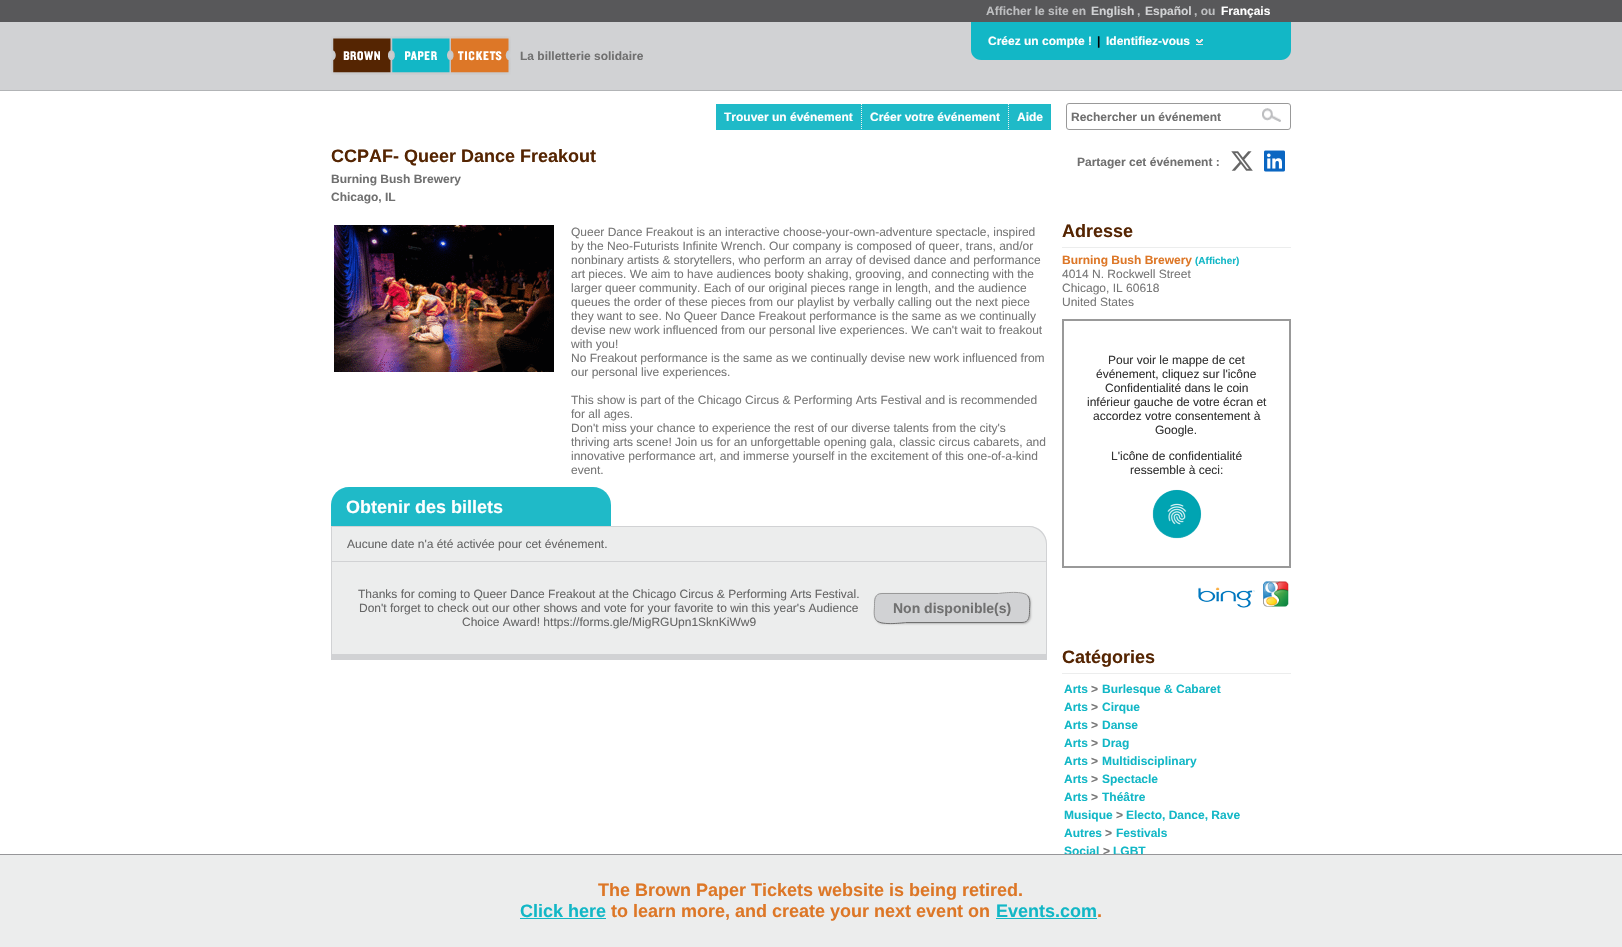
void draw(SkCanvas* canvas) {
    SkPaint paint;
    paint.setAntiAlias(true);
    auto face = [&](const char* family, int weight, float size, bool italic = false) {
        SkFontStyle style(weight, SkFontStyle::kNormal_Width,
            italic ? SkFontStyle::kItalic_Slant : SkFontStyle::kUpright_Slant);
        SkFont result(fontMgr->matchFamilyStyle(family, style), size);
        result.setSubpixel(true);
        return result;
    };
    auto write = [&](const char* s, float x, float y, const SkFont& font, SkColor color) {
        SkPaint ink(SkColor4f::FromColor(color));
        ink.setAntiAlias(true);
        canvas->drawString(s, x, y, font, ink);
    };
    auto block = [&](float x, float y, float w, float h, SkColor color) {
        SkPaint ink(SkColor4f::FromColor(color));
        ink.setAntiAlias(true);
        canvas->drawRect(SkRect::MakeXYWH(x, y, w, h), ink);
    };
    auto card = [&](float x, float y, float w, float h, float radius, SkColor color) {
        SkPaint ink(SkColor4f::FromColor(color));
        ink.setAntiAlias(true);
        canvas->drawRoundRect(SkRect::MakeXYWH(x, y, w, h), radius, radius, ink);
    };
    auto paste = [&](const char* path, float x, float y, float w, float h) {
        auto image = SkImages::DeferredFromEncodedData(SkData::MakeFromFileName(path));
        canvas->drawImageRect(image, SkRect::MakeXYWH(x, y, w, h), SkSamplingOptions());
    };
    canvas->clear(SkColorSetRGB(88, 88, 90));
    auto kFont1 = face("Liberation Sans", 700, 12);
    write("Afficher le site en", 986, 15, kFont1, SkColorSetRGB(189, 190, 192));
    write("English", 1091, 15, kFont1, SkColorSetRGB(209, 210, 212));
    write(",", 1137, 15, kFont1, SkColorSetRGB(189, 190, 192));
    write("Español", 1145, 15, kFont1, SkColorSetRGB(209, 210, 212));
    write(", ou", 1194, 15, kFont1, SkColorSetRGB(189, 190, 192));
    write("Français", 1221, 15, kFont1, SK_ColorWHITE);
    block(0, 22, 1622, 68, SkColorSetRGB(209, 210, 212));
    block(0, 90, 1622, 1, SkColorSetRGB(178, 180, 182));
    paste("pic1.png", 331, 36, 180, 39);
    paint.setColor(SkColorSetRGB(18, 183, 198));
    canvas->drawPath(SkPathBuilder().moveTo(971, 22).lineTo(1291, 22).lineTo(1291, 50).cubicTo(1291, 55.5f, 1286.5f, 60, 1281, 60).lineTo(981, 60).cubicTo(975.5f, 60, 971, 55.5f, 971, 50).close().detach(), paint);
    write("Créez un compte !", 988, 45, kFont1, SK_ColorWHITE);
    write("|", 1097, 45, kFont1, SK_ColorBLACK);
    write("Identifiez-vous", 1106, 45, kFont1, SK_ColorWHITE);
    paste("pic2.png", 1196, 39, 7, 6);
    write("La billetterie solidaire", 520, 60, kFont1, SkColorSetRGB(112, 112, 112));
    block(0, 91, 1622, 763, SK_ColorWHITE);
    block(716, 104, 335, 26, SkColorSetRGB(31, 186, 200));
    paint.setStyle(SkPaint::kStroke_Style);
    paint.setStrokeWidth(1);
    paint.setColor(SkColorSetRGB(239, 239, 239));
    paint.setPathEffect(SkDashPathEffect::Make({{1, 1}}, 0));
    canvas->drawPath(SkPathBuilder().moveTo(861.5f, 104).lineTo(861.5f, 130).detach(), paint);
    paint.setPathEffect(nullptr);
    write("Trouver un événement", 724, 121, kFont1, SK_ColorWHITE);
    paint.setPathEffect(SkDashPathEffect::Make({{1, 1}}, 0));
    canvas->drawPath(SkPathBuilder().moveTo(1008.5f, 104).lineTo(1008.5f, 130).detach(), paint);
    paint.setPathEffect(nullptr);
    write("Créer votre événement", 870, 121, kFont1, SK_ColorWHITE);
    write("Aide", 1017, 121, kFont1, SK_ColorWHITE);
    paint.setColor(SkColorSetRGB(153, 153, 153));
    canvas->drawRoundRect(SkRect::MakeXYWH(1066.5f, 103.5f, 224, 26), 2.5f, 2.5f, paint);
    write("Rechercher un événement", 1071, 121, kFont1, SkColorSetRGB(112, 112, 112));
    paste("pic3.png", 1262, 108, 19, 14);
    auto kFont2 = face("Liberation Sans", 700, 18);
    write("CCPAF- Queer Dance Freakout", 331, 162, kFont2, SkColorSetRGB(85, 37, 2));
    write("Burning Bush Brewery", 331, 183, kFont1, SkColorSetRGB(112, 112, 112));
    write("Chicago, IL", 331, 201, kFont1, SkColorSetRGB(112, 112, 112));
    write("Partager cet événement :", 1077, 166, kFont1, SkColorSetRGB(112, 112, 112));
    paste("pic4.png", 1231, 151, 22, 20);
    paste("pic5.png", 1264, 150, 21, 22);
    paste("pic6.png", 334, 225, 220, 147);
    auto kFont3 = face("Liberation Sans", 400, 12);
    write("Queer Dance Freakout is an interactive choose-your-own-adventure spectacle, inspired", 571, 236, kFont3, SkColorSetRGB(119, 119, 119));
    write("by the Neo-Futurists Infinite Wrench. Our company is composed of queer, trans, and/or", 571, 250, kFont3, SkColorSetRGB(119, 119, 119));
    write("nonbinary artists & storytellers, who perform an array of devised dance and performance", 571, 264, kFont3, SkColorSetRGB(119, 119, 119));
    write("art pieces. We aim to have audiences booty shaking, grooving, and connecting with the", 571, 278, kFont3, SkColorSetRGB(119, 119, 119));
    write("larger queer community. Each of our original pieces range in length, and the audience", 571, 292, kFont3, SkColorSetRGB(119, 119, 119));
    write("queues the order of these pieces from our playlist by verbally calling out the next piece", 571, 306, kFont3, SkColorSetRGB(119, 119, 119));
    write("they want to see. No Queer Dance Freakout performance is the same as we continually", 571, 320, kFont3, SkColorSetRGB(119, 119, 119));
    write("devise new work influenced from our personal live experiences. We can't wait to freakout", 571, 334, kFont3, SkColorSetRGB(119, 119, 119));
    write("with you!", 571, 348, kFont3, SkColorSetRGB(119, 119, 119));
    write("No Freakout performance is the same as we continually devise new work influenced from", 571, 362, kFont3, SkColorSetRGB(119, 119, 119));
    write("our personal live experiences.", 571, 376, kFont3, SkColorSetRGB(119, 119, 119));
    write("This show is part of the Chicago Circus & Performing Arts Festival and is recommended", 571, 404, kFont3, SkColorSetRGB(119, 119, 119));
    write("for all ages.", 571, 418, kFont3, SkColorSetRGB(119, 119, 119));
    write("Don't miss your chance to experience the rest of our diverse talents from the city's", 571, 432, kFont3, SkColorSetRGB(119, 119, 119));
    write("thriving arts scene! Join us for an unforgettable opening gala, classic circus cabarets, and", 571, 446, kFont3, SkColorSetRGB(119, 119, 119));
    write("innovative performance art, and immerse yourself in the excitement of this one-of-a-kind", 571, 460, kFont3, SkColorSetRGB(119, 119, 119));
    write("event.", 571, 474, kFont3, SkColorSetRGB(119, 119, 119));
    paint.setStyle(SkPaint::kFill_Style);
    paint.setColor(SkColorSetRGB(31, 186, 200));
    canvas->drawPath(SkPathBuilder().moveTo(349, 487).lineTo(593, 487).cubicTo(603, 487, 611, 495, 611, 505).lineTo(611, 526).lineTo(331, 526).lineTo(331, 505).cubicTo(331, 495, 339, 487, 349, 487).close().detach(), paint);
    write("Obtenir des billets", 346, 513, kFont2, SK_ColorWHITE);
    paint.setColor(SkColorSetRGB(236, 237, 237));
    canvas->drawPath(SkPathBuilder().moveTo(331, 526).lineTo(1029, 526).cubicTo(1039, 526, 1047, 534, 1047, 544).lineTo(1047, 561).lineTo(331, 561).close().detach(), paint);
    paint.setColor(SkColorSetRGB(209, 210, 212));
    canvas->drawPath(SkPathBuilder(SkPathFillType::kEvenOdd).moveTo(331, 526).lineTo(1029, 526).cubicTo(1039, 526, 1047, 534, 1047, 544).lineTo(1047, 561).lineTo(331, 561).close().moveTo(332, 527).lineTo(1029, 527).cubicTo(1038, 527, 1046, 535, 1046, 544).lineTo(1046, 561).lineTo(332, 561).close().detach(), paint);
    write("Aucune date n'a été activée pour cet événement.", 347, 548, kFont3, SkColorSetRGB(102, 102, 102));
    block(332, 562, 714, 92, SkColorSetRGB(236, 237, 237));
    block(331, 561, 716, 1, SkColorSetRGB(209, 210, 212));
    block(1046, 561, 1, 99, SkColorSetRGB(209, 210, 212));
    block(331, 654, 716, 6, SkColorSetRGB(209, 210, 212));
    block(331, 561, 1, 99, SkColorSetRGB(209, 210, 212));
    write("Thanks for coming to Queer Dance Freakout at the Chicago Circus & Performing Arts Festival.", 358, 598, kFont3, SkColorSetRGB(102, 102, 102));
    write("Don't forget to check out our other shows and vote for your favorite to win this year's Audience", 359, 612, kFont3, SkColorSetRGB(102, 102, 102));
    write("Choice Award! https://forms.gle/MigRGUpn1SknKiWw9", 462, 626, kFont3, SkColorSetRGB(102, 102, 102));
    paint.setColor(SkColorSetRGB(184, 184, 184));
    paint.setMaskFilter(SkMaskFilter::MakeBlur(kNormal_SkBlurStyle, 1));
    canvas->drawRoundRect(SkRect::MakeXYWH(875, 594, 156, 30), 8, 8, paint);
    paint.setMaskFilter(nullptr);
    card(874, 593, 156, 30, 8, SkColorSetRGB(209, 210, 212));
    paint.setStyle(SkPaint::kStroke_Style);
    paint.setColor(SkColorSetRGB(112, 112, 112));
    canvas->drawPath(SkPathBuilder().moveTo(1027.5f, 595.5f).cubicTo(1031, 599.5f, 1029.5f, 606, 1029.5f, 610.5f).cubicTo(1029.5f, 616, 1029.5f, 622.5f, 1022, 622.5f).lineTo(905.5f, 622.5f).cubicTo(905, 622.5f, 882, 626, 876.5f, 620.5f).detach(), paint);
    paint.setColor(SkColorSetRGB(153, 153, 153));
    canvas->drawPath(SkPathBuilder().moveTo(876.5f, 620.5f).cubicTo(873, 616.5f, 874.5f, 610, 874.5f, 605.5f).cubicTo(874.5f, 600, 874.5f, 593.5f, 882, 593.5f).lineTo(998.5f, 593.5f).cubicTo(999, 593.5f, 1022, 590, 1027.5f, 595.5f).detach(), paint);
    auto kFont4 = face("Liberation Sans", 700, 14);
    write("Non disponible(s)", 893, 613, kFont4, SkColorSetRGB(112, 112, 112));
    block(1062, 247, 229, 1, SkColorSetRGB(236, 237, 237));
    write("Adresse", 1062, 237, kFont2, SkColorSetRGB(85, 37, 2));
    write("Burning Bush Brewery", 1062, 264, kFont1, SkColorSetRGB(221, 119, 39));
    auto kFont5 = face("Liberation Sans", 700, 10);
    write("(Afficher)", 1195, 264, kFont5, SkColorSetRGB(18, 183, 198));
    write("4014 N. Rockwell Street", 1062, 278, kFont3, SkColorSetRGB(119, 119, 119));
    write("Chicago, IL 60618", 1062, 292, kFont3, SkColorSetRGB(119, 119, 119));
    write("United States", 1062, 306, kFont3, SkColorSetRGB(119, 119, 119));
    paint.setStrokeWidth(2);
    canvas->drawRect(SkRect::MakeXYWH(1063, 320, 227, 247), paint);
    write("Pour voir le mappe de cet", 1108, 364, kFont3, SkColorSetRGB(51, 51, 51));
    write("événement, cliquez sur l'icône", 1096, 378, kFont3, SkColorSetRGB(51, 51, 51));
    write("Confidentialité dans le coin", 1105, 392, kFont3, SkColorSetRGB(51, 51, 51));
    write("inférieur gauche de votre écran et", 1087, 406, kFont3, SkColorSetRGB(51, 51, 51));
    write("accordez votre consentement à", 1093, 420, kFont3, SkColorSetRGB(51, 51, 51));
    write("Google.", 1155, 434, kFont3, SkColorSetRGB(51, 51, 51));
    write("L'icône de confidentialité", 1111, 460, kFont3, SkColorSetRGB(51, 51, 51));
    write("ressemble à ceci:", 1130, 474, kFont3, SkColorSetRGB(51, 51, 51));
    paste("pic7.png", 1152, 489, 50, 50);
    paste("pic8.png", 1198, 587, 57, 21);
    paste("pic9.png", 1263, 581, 26, 26);
    block(1062, 673, 229, 1, SkColorSetRGB(236, 237, 237));
    write("Catégories", 1062, 663, kFont2, SkColorSetRGB(85, 37, 2));
    write("Arts", 1064, 693, kFont1, SkColorSetRGB(18, 183, 198));
    write(">", 1091, 693, kFont1, SkColorSetRGB(119, 119, 119));
    write("Burlesque & Cabaret", 1102, 693, kFont1, SkColorSetRGB(18, 183, 198));
    write("Arts", 1064, 711, kFont1, SkColorSetRGB(18, 183, 198));
    write(">", 1091, 711, kFont1, SkColorSetRGB(119, 119, 119));
    write("Cirque", 1102, 711, kFont1, SkColorSetRGB(18, 183, 198));
    write("Arts", 1064, 729, kFont1, SkColorSetRGB(18, 183, 198));
    write(">", 1091, 729, kFont1, SkColorSetRGB(119, 119, 119));
    write("Danse", 1102, 729, kFont1, SkColorSetRGB(18, 183, 198));
    write("Arts", 1064, 747, kFont1, SkColorSetRGB(18, 183, 198));
    write(">", 1091, 747, kFont1, SkColorSetRGB(119, 119, 119));
    write("Drag", 1102, 747, kFont1, SkColorSetRGB(18, 183, 198));
    write("Arts", 1064, 765, kFont1, SkColorSetRGB(18, 183, 198));
    write(">", 1091, 765, kFont1, SkColorSetRGB(119, 119, 119));
    write("Multidisciplinary", 1102, 765, kFont1, SkColorSetRGB(18, 183, 198));
    write("Arts", 1064, 783, kFont1, SkColorSetRGB(18, 183, 198));
    write(">", 1091, 783, kFont1, SkColorSetRGB(119, 119, 119));
    write("Spectacle", 1102, 783, kFont1, SkColorSetRGB(18, 183, 198));
    write("Arts", 1064, 801, kFont1, SkColorSetRGB(18, 183, 198));
    write(">", 1091, 801, kFont1, SkColorSetRGB(119, 119, 119));
    write("Théâtre", 1102, 801, kFont1, SkColorSetRGB(18, 183, 198));
    write("Musique", 1064, 819, kFont1, SkColorSetRGB(18, 183, 198));
    write(">", 1116, 819, kFont1, SkColorSetRGB(119, 119, 119));
    write("Electo, Dance, Rave", 1126, 819, kFont1, SkColorSetRGB(18, 183, 198));
    write("Autres", 1064, 837, kFont1, SkColorSetRGB(18, 183, 198));
    write(">", 1105, 837, kFont1, SkColorSetRGB(119, 119, 119));
    write("Festivals", 1116, 837, kFont1, SkColorSetRGB(18, 183, 198));
    write("Social", 1064, 855, kFont1, SkColorSetRGB(18, 183, 198));
    write(">", 1103, 855, kFont1, SkColorSetRGB(119, 119, 119));
    write("LGBT", 1113, 855, kFont1, SkColorSetRGB(18, 183, 198));
    block(0, 855, 1622, 92, SkColorSetRGB(236, 237, 237));
    block(0, 854, 1622, 1, SkColorSetRGB(150, 150, 153));
    write("The Brown Paper Tickets website is being retired.", 598, 896, kFont2, SkColorSetRGB(221, 119, 39));
    write("Click here", 520, 917, kFont2, SkColorSetRGB(18, 183, 198));
    block(520, 918, 86, 1, SkColorSetRGB(18, 183, 198));
    write("to learn more, and create your next event on", 611, 917, kFont2, SkColorSetRGB(221, 119, 39));
    write("Events.com", 996, 917, kFont2, SkColorSetRGB(18, 183, 198));
    write(".", 1097, 917, kFont2, SkColorSetRGB(221, 119, 39));
    block(996, 918, 101, 1, SkColorSetRGB(18, 183, 198));
}
